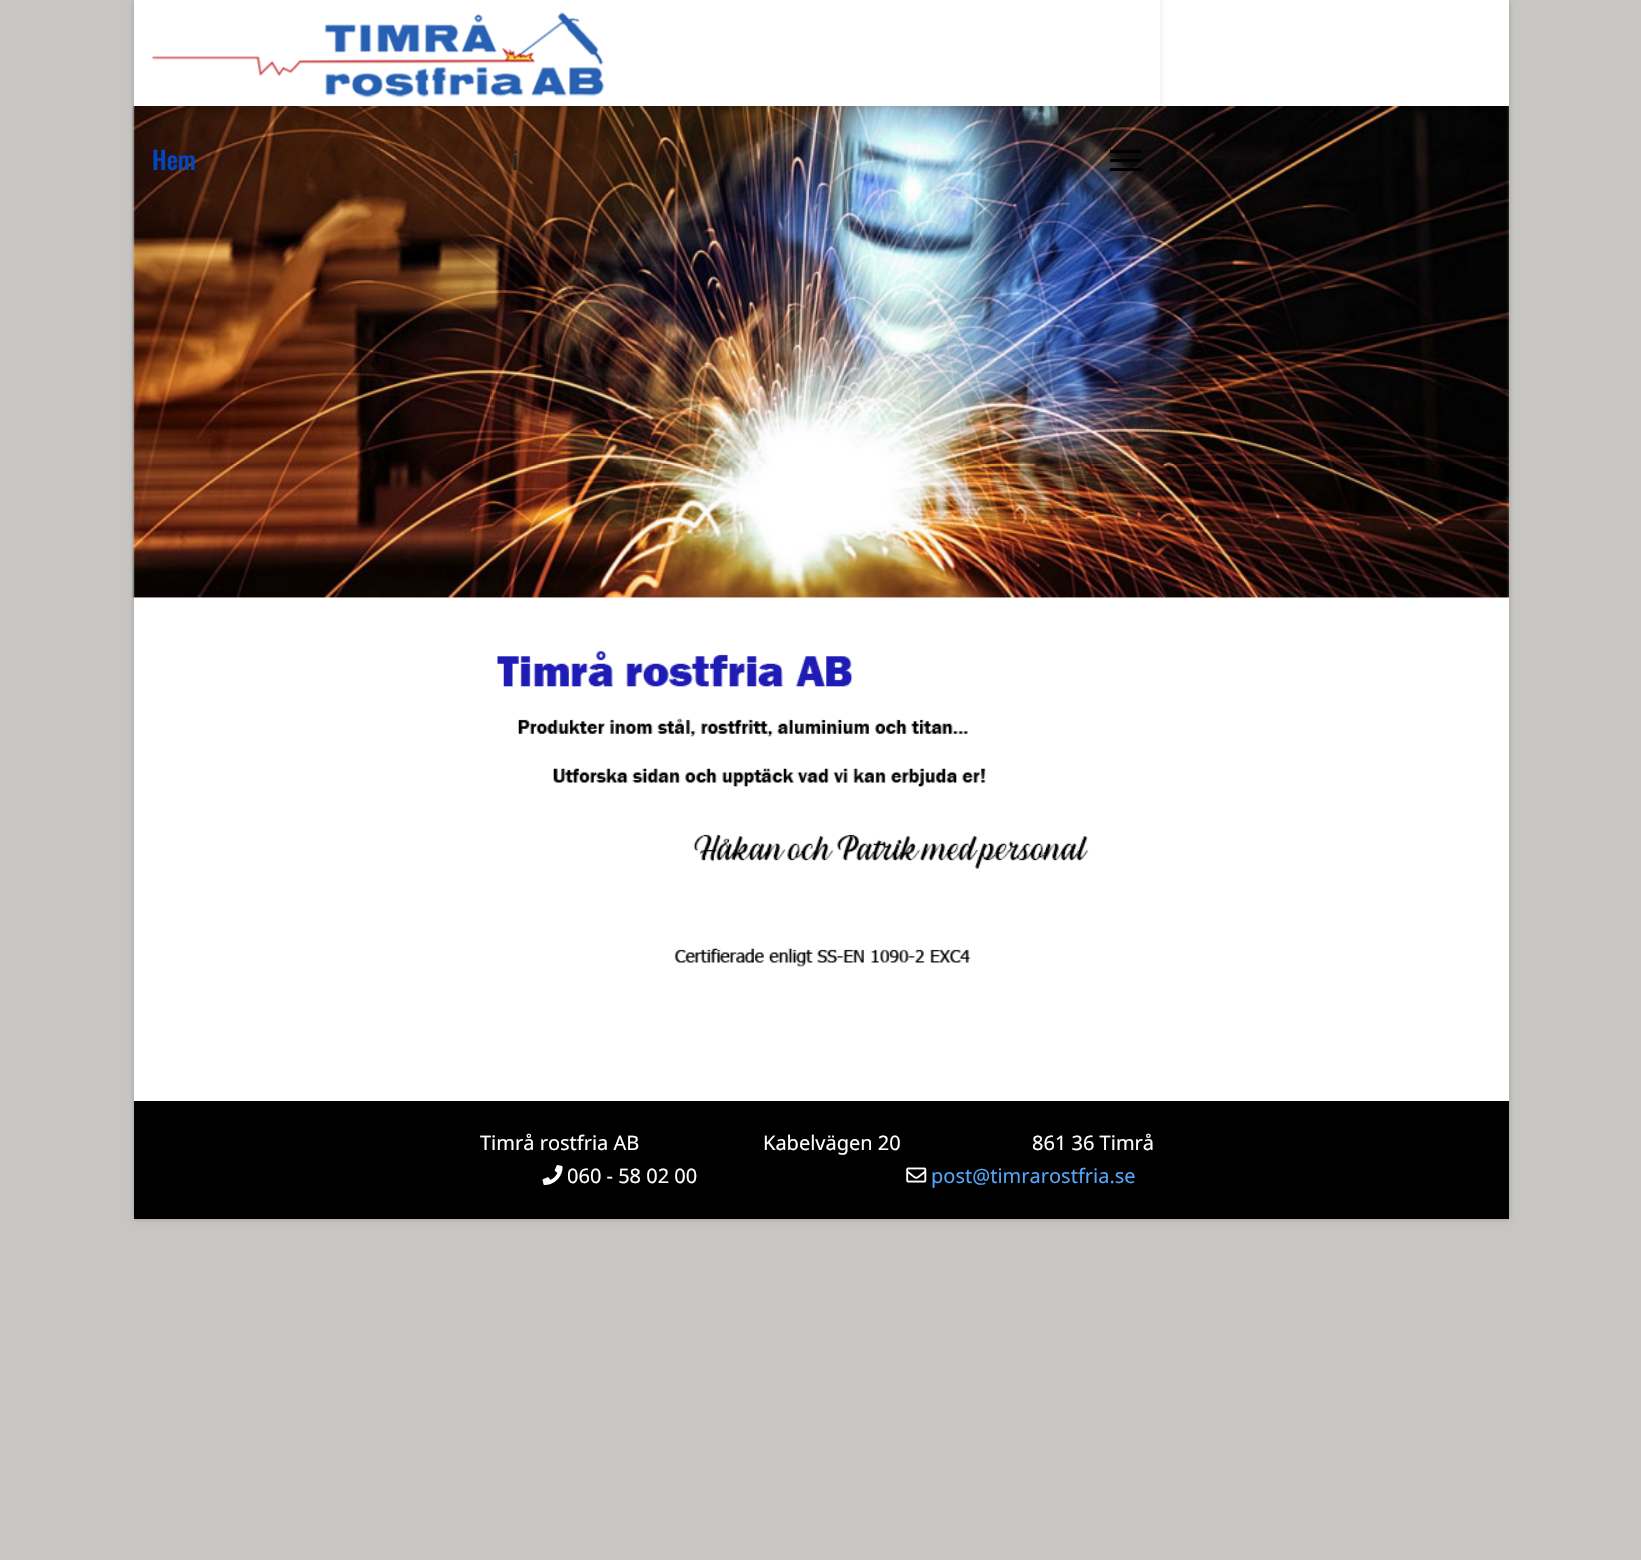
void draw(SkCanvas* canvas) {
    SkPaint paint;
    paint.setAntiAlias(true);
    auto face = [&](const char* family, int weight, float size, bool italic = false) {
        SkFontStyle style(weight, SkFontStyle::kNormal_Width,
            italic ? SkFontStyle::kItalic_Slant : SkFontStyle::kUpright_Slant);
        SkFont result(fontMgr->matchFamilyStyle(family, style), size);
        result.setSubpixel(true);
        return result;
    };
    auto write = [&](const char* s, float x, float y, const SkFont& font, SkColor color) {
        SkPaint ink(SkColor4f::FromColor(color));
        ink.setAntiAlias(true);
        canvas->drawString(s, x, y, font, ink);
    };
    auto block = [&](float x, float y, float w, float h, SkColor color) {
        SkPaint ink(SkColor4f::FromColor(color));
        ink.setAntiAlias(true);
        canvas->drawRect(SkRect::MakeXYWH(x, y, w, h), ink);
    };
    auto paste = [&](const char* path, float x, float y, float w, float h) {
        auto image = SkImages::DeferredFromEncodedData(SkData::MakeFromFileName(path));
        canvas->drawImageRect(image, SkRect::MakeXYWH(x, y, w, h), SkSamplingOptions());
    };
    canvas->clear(SkColorSetRGB(199, 198, 195));
    paint.setColor(SkColorSetARGB(51, 0, 0, 0));
    paint.setMaskFilter(SkMaskFilter::MakeBlur(kNormal_SkBlurStyle, 3));
    canvas->drawRect(SkRect::MakeXYWH(134, 0, 1375, 1219), paint);
    paint.setMaskFilter(nullptr);
    block(134, 0, 1375, 1101, SK_ColorWHITE);
    paste("pic1.png", 132, 106, 1377, 492);
    canvas->save();
    canvas->clipRect(SkRect::MakeXYWH(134, 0, 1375, 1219));
    canvas->clipPath(SkPathBuilder(SkPathFillType::kEvenOdd).moveTo(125, 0).lineTo(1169, 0).lineTo(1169, 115).lineTo(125, 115).close().moveTo(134, 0).lineTo(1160, 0).lineTo(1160, 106).lineTo(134, 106).close().detach(), true);
    paint.setColor(SkColorSetARGB(26, 0, 0, 0));
    paint.setMaskFilter(SkMaskFilter::MakeBlur(kNormal_SkBlurStyle, 2.5f));
    canvas->drawRect(SkRect::MakeXYWH(134, 0, 1026, 106), paint);
    paint.setMaskFilter(nullptr);
    canvas->restore();
    paste("pic2.png", 152, 12, 453, 86);
    auto kFont1 = face("Oswald", 500, 25);
    write("Hem", 152, 170, kFont1, SkColorSetRGB(3, 69, 191));
    write("i", 512, 170, kFont1, SkColorSetRGB(37, 37, 37));
    block(1110, 150, 31, 3, SK_ColorBLACK);
    block(1110, 159, 31, 3, SK_ColorBLACK);
    block(1110, 168, 31, 3, SK_ColorBLACK);
    paste("pic3.png", 497, 651, 592, 316);
    block(134, 1101, 1375, 118, SK_ColorBLACK);
    auto kFont2 = face("Noto Sans", 400, 20);
    write("Timrå rostfria AB", 480, 1150, kFont2, SK_ColorWHITE);
    write("Kabelvägen 20", 763, 1150, kFont2, SK_ColorWHITE);
    write("861 36 Timrå", 1032, 1150, kFont2, SK_ColorWHITE);
    paste("pic4.png", 542, 1165, 21, 20);
    write("060 - 58 02 00", 567, 1183, kFont2, SK_ColorWHITE);
    paste("pic5.png", 906, 1167, 21, 16);
    write("post@timrarostfria.se", 931, 1183, kFont2, SkColorSetRGB(84, 166, 247));
}
